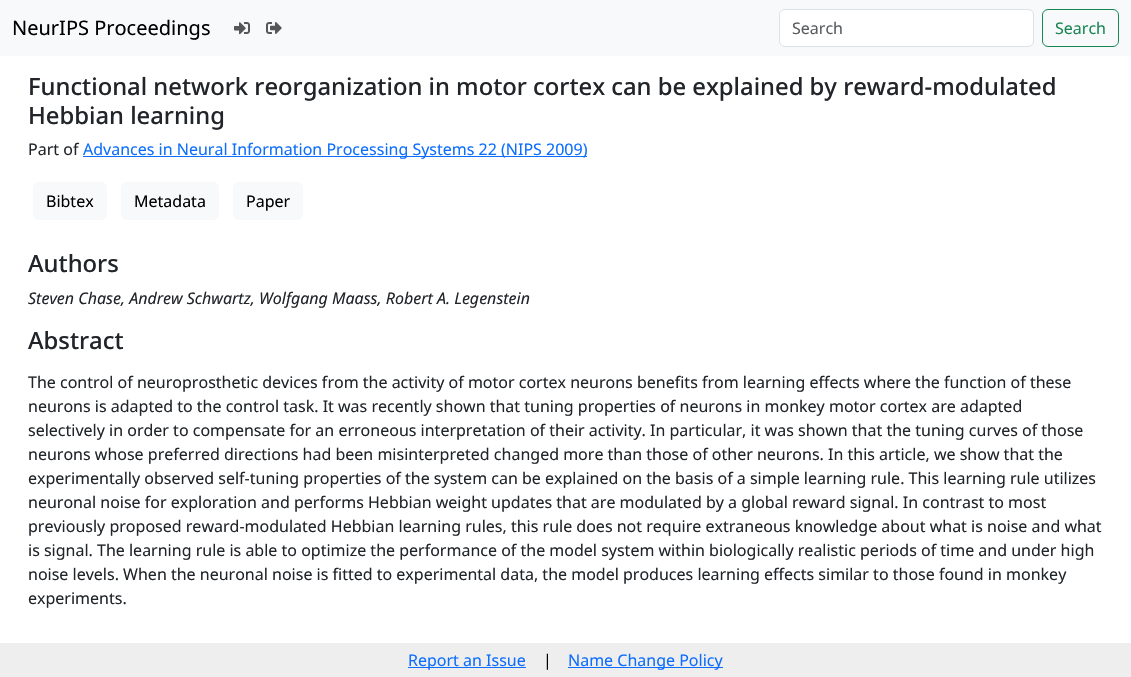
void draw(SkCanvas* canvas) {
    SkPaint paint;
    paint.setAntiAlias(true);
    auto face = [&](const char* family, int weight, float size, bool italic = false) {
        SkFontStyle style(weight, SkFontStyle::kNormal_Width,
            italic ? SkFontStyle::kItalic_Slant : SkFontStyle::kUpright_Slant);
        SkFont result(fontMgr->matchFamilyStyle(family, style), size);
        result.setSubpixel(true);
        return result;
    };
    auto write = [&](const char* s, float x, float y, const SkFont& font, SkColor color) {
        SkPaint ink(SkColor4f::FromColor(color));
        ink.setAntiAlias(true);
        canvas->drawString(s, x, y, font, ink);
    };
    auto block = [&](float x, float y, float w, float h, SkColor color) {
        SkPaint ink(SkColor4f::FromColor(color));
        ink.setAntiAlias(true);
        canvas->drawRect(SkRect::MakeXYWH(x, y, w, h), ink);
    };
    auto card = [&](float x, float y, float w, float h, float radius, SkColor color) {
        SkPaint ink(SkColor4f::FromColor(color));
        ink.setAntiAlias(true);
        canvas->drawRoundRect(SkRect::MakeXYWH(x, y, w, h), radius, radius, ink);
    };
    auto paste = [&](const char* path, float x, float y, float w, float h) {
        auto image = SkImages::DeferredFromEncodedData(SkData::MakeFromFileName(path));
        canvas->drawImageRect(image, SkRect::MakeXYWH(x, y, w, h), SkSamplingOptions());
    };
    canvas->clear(SK_ColorWHITE);
    block(0, 0, 1131, 56, SkColorSetRGB(248, 249, 250));
    auto kFont1 = face("Noto Sans", 400, 20);
    write("NeurIPS Proceedings", 12, 35, kFont1, SK_ColorBLACK);
    paste("pic1.png", 234, 22, 16, 13);
    paste("pic2.png", 266, 22, 16, 12);
    paint.setColor(SK_ColorWHITE);
    canvas->drawRoundRect(SkRect::MakeXYWH(779.5f, 9.5f, 254, 37), 5.5f, 5.5f, paint);
    paint.setStyle(SkPaint::kStroke_Style);
    paint.setStrokeWidth(1);
    paint.setColor(SkColorSetRGB(222, 226, 230));
    canvas->drawRoundRect(SkRect::MakeXYWH(779.5f, 9.5f, 254, 37), 5.5f, 5.5f, paint);
    auto kFont2 = face("Noto Sans", 400, 16);
    write("Search", 792, 34, kFont2, SkColorSetRGB(89, 92, 95));
    paint.setColor(SkColorSetRGB(25, 135, 84));
    canvas->drawRoundRect(SkRect::MakeXYWH(1042.5f, 9.5f, 76, 37), 5.5f, 5.5f, paint);
    write("Search", 1055, 34, kFont2, SkColorSetRGB(25, 135, 84));
    auto kFont3 = face("Noto Sans", 500, 23.8f);
    write("Functional network reorganization in motor cortex can be explained by reward-modulated", 28, 95, kFont3, SkColorSetRGB(33, 37, 41));
    write("Hebbian learning", 28, 124, kFont3, SkColorSetRGB(33, 37, 41));
    write("Part of", 28, 155, kFont2, SkColorSetRGB(33, 37, 41));
    block(83, 156, 504, 1, SkColorSetRGB(13, 110, 253));
    write("Advances in Neural Information Processing Systems 22 (NIPS 2009)", 83, 155, kFont2, SkColorSetRGB(13, 110, 253));
    card(33, 182, 74, 38, 6, SkColorSetRGB(248, 249, 250));
    write("Bibtex", 46, 207, kFont2, SK_ColorBLACK);
    card(121, 182, 98, 38, 6, SkColorSetRGB(248, 249, 250));
    write("Metadata", 134, 207, kFont2, SK_ColorBLACK);
    card(233, 182, 70, 38, 6, SkColorSetRGB(248, 249, 250));
    write("Paper", 246, 207, kFont2, SK_ColorBLACK);
    write("Authors", 28, 272, kFont3, SkColorSetRGB(33, 37, 41));
    auto kFont4 = face("Noto Sans", 400, 16, true);
    write("Steven Chase, Andrew Schwartz, Wolfgang Maass, Robert A. Legenstein", 28, 304, kFont4, SkColorSetRGB(33, 37, 41));
    write("Abstract", 28, 349, kFont3, SkColorSetRGB(33, 37, 41));
    write("The control of neuroprosthetic devices from the activity of motor cortex neurons benefits from learning effects where the function of these", 28, 388, kFont2, SkColorSetRGB(33, 37, 41));
    write("neurons is adapted to the control task. It was recently shown that tuning properties of neurons in monkey motor cortex are adapted", 28, 412, kFont2, SkColorSetRGB(33, 37, 41));
    write("selectively in order to compensate for an erroneous interpretation of their activity. In particular, it was shown that the tuning curves of those", 28, 436, kFont2, SkColorSetRGB(33, 37, 41));
    write("neurons whose preferred directions had been misinterpreted changed more than those of other neurons. In this article, we show that the", 28, 460, kFont2, SkColorSetRGB(33, 37, 41));
    write("experimentally observed self-tuning properties of the system can be explained on the basis of a simple learning rule. This learning rule utilizes", 28, 484, kFont2, SkColorSetRGB(33, 37, 41));
    write("neuronal noise for exploration and performs Hebbian weight updates that are modulated by a global reward signal. In contrast to most", 28, 508, kFont2, SkColorSetRGB(33, 37, 41));
    write("previously proposed reward-modulated Hebbian learning rules, this rule does not require extraneous knowledge about what is noise and what", 28, 532, kFont2, SkColorSetRGB(33, 37, 41));
    write("is signal. The learning rule is able to optimize the performance of the model system within biologically realistic periods of time and under high", 28, 556, kFont2, SkColorSetRGB(33, 37, 41));
    write("noise levels. When the neuronal noise is fitted to experimental data, the model produces learning effects similar to those found in monkey", 28, 580, kFont2, SkColorSetRGB(33, 37, 41));
    write("experiments.", 28, 604, kFont2, SkColorSetRGB(33, 37, 41));
    block(0, 643, 1131, 34, SkColorSetRGB(238, 238, 238));
    block(408, 667, 118, 1, SkColorSetRGB(13, 110, 253));
    write("Report an Issue", 408, 666, kFont2, SkColorSetRGB(13, 110, 253));
    write("|", 543, 666, kFont2, SK_ColorBLACK);
    block(568, 667, 155, 1, SkColorSetRGB(13, 110, 253));
    write("Name Change Policy", 568, 666, kFont2, SkColorSetRGB(13, 110, 253));
}
